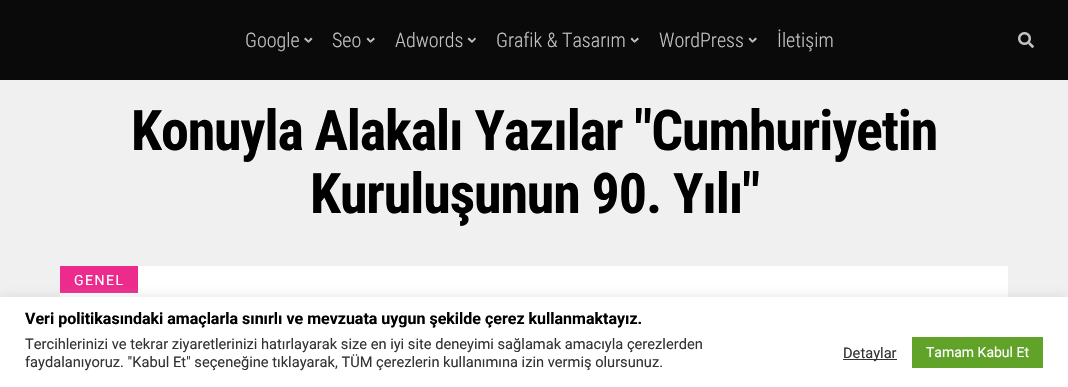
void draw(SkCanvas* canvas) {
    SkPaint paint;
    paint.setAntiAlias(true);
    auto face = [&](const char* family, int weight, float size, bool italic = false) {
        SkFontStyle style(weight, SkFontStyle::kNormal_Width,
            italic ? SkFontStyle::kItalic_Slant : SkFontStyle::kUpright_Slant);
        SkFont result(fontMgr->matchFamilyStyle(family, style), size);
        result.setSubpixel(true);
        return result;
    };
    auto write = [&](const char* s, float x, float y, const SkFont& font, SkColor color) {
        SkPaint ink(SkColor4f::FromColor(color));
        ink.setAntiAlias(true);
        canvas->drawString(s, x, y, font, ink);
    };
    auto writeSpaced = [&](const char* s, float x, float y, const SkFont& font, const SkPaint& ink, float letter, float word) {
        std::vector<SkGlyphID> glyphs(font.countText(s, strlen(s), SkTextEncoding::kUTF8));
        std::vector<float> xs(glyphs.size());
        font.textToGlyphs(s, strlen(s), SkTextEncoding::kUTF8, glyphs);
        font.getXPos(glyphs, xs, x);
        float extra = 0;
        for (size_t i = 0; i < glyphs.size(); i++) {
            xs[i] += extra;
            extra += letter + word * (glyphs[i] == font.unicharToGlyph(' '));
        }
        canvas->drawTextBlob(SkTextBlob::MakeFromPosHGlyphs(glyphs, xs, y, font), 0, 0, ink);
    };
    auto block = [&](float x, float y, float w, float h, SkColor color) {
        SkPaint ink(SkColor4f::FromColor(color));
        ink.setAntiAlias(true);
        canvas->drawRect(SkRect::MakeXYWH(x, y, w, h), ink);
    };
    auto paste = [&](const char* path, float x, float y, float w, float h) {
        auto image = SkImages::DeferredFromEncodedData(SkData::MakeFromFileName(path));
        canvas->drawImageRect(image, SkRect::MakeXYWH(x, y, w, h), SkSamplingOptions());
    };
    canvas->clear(SkColorSetRGB(240, 240, 240));
    block(0, 0, 1068, 80, SkColorSetRGB(10, 10, 10));
    auto kFont1 = face("Roboto Condensed", 300, 20);
    write("Google", 245, 47, kFont1, SkColorSetRGB(194, 194, 194));
    paint.setColor(SkColorSetRGB(194, 194, 194));
    canvas->drawPath(SkPathBuilder().moveTo(312.5f, 39).lineTo(308.5f, 43).lineTo(308.5f, 40.5f).lineTo(311, 37.5f).close().detach(), paint);
    paint.setColor(SkColorSetARGB(191, 255, 255, 255));
    canvas->drawPath(SkPathBuilder().moveTo(308.5f, 43).lineTo(304, 39).lineTo(305.5f, 37.5f).lineTo(308.5f, 40.5f).close().detach(), paint);
    write("Seo", 332, 47, kFont1, SkColorSetRGB(194, 194, 194));
    paint.setColor(SkColorSetRGB(194, 194, 194));
    canvas->drawPath(SkPathBuilder().moveTo(375, 39).lineTo(370.5f, 43).lineTo(370.5f, 40.5f).lineTo(373.5f, 37.5f).close().detach(), paint);
    paint.setColor(SkColorSetARGB(191, 255, 255, 255));
    canvas->drawPath(SkPathBuilder().moveTo(370.5f, 43).lineTo(366.5f, 39).lineTo(368, 37.5f).lineTo(370.5f, 40.5f).close().detach(), paint);
    write("Adwords", 395, 47, kFont1, SkColorSetRGB(194, 194, 194));
    paint.setColor(SkColorSetRGB(194, 194, 194));
    canvas->drawPath(SkPathBuilder().moveTo(476, 39).lineTo(472, 43).lineTo(472, 40.5f).lineTo(475, 37.5f).close().moveTo(472, 43).lineTo(467.5f, 39).lineTo(469, 37.5f).lineTo(472, 40.5f).close().detach(), paint);
    write("Grafik & Tasarım", 496, 47, kFont1, SkColorSetRGB(194, 194, 194));
    canvas->drawPath(SkPathBuilder().moveTo(639, 39).lineTo(634.5f, 43).lineTo(634.5f, 40.5f).lineTo(637.5f, 37.5f).close().detach(), paint);
    paint.setColor(SkColorSetARGB(191, 255, 255, 255));
    canvas->drawPath(SkPathBuilder().moveTo(634.5f, 43).lineTo(630.5f, 39).lineTo(632, 37.5f).lineTo(634.5f, 40.5f).close().detach(), paint);
    write("WordPress", 659, 47, kFont1, SkColorSetRGB(194, 194, 194));
    paint.setColor(SkColorSetRGB(194, 194, 194));
    canvas->drawPath(SkPathBuilder().moveTo(757, 39).lineTo(752.5f, 43).lineTo(752.5f, 40.5f).lineTo(755.5f, 37.5f).close().detach(), paint);
    paint.setColor(SkColorSetARGB(191, 255, 255, 255));
    canvas->drawPath(SkPathBuilder().moveTo(752.5f, 43).lineTo(748.5f, 39).lineTo(750, 37.5f).lineTo(752.5f, 40.5f).close().detach(), paint);
    write("İletişim", 777, 47, kFont1, SkColorSetRGB(194, 194, 194));
    paste("pic1.png", 1018, 32, 16, 16);
    auto kFont2 = face("Roboto Condensed", 700, 56);
    paint.setColor(SK_ColorBLACK);
    writeSpaced("Konuyla Alakalı Yazılar \"Cumhuriyetin", 131, 150, kFont2, paint, -1.1f, 0);
    writeSpaced("Kuruluşunun 90. Yılı\"", 310, 213, kFont2, paint, -1.1f, 0);
    block(60, 266, 948, 31, SK_ColorWHITE);
    block(60, 266, 78, 27, SkColorSetRGB(236, 43, 140));
    auto kFont3 = face("Roboto", 400, 14);
    paint.setColor(SK_ColorWHITE);
    writeSpaced("GENEL", 74, 285, kFont3, paint, 1.5f, 0);
    paint.setColor(SkColorSetARGB(77, 172, 171, 171));
    paint.setMaskFilter(SkMaskFilter::MakeBlur(kNormal_SkBlurStyle, 5));
    canvas->drawRect(SkRect::MakeXYWH(0, 296, 1068, 90), paint);
    paint.setMaskFilter(nullptr);
    block(0, 297, 1068, 90, SK_ColorWHITE);
    auto kFont4 = face("Roboto", 700, 16);
    write("Veri politikasındaki amaçlarla sınırlı ve mevzuata uygun şekilde çerez kullanmaktayız.", 25, 324, kFont4, SK_ColorBLACK);
    auto kFont5 = face("Roboto", 400, 14.65f);
    write("Tercihlerinizi ve tekrar ziyaretlerinizi hatırlayarak size en iyi site deneyimi sağlamak amacıyla çerezlerden", 25, 349, kFont5, SkColorSetRGB(51, 51, 51));
    write("faydalanıyoruz. \"Kabul Et\" seçeneğine tıklayarak, TÜM çerezlerin kullanımına izin vermiş olursunuz.", 25, 367, kFont5, SkColorSetRGB(51, 51, 51));
    block(843, 359, 54, 1, SkColorSetRGB(51, 51, 51));
    write("Detaylar", 843, 358, kFont5, SkColorSetRGB(51, 51, 51));
    block(912, 337, 131, 31, SkColorSetRGB(97, 162, 41));
    write("Tamam Kabul Et", 926, 357, kFont3, SK_ColorWHITE);
}
